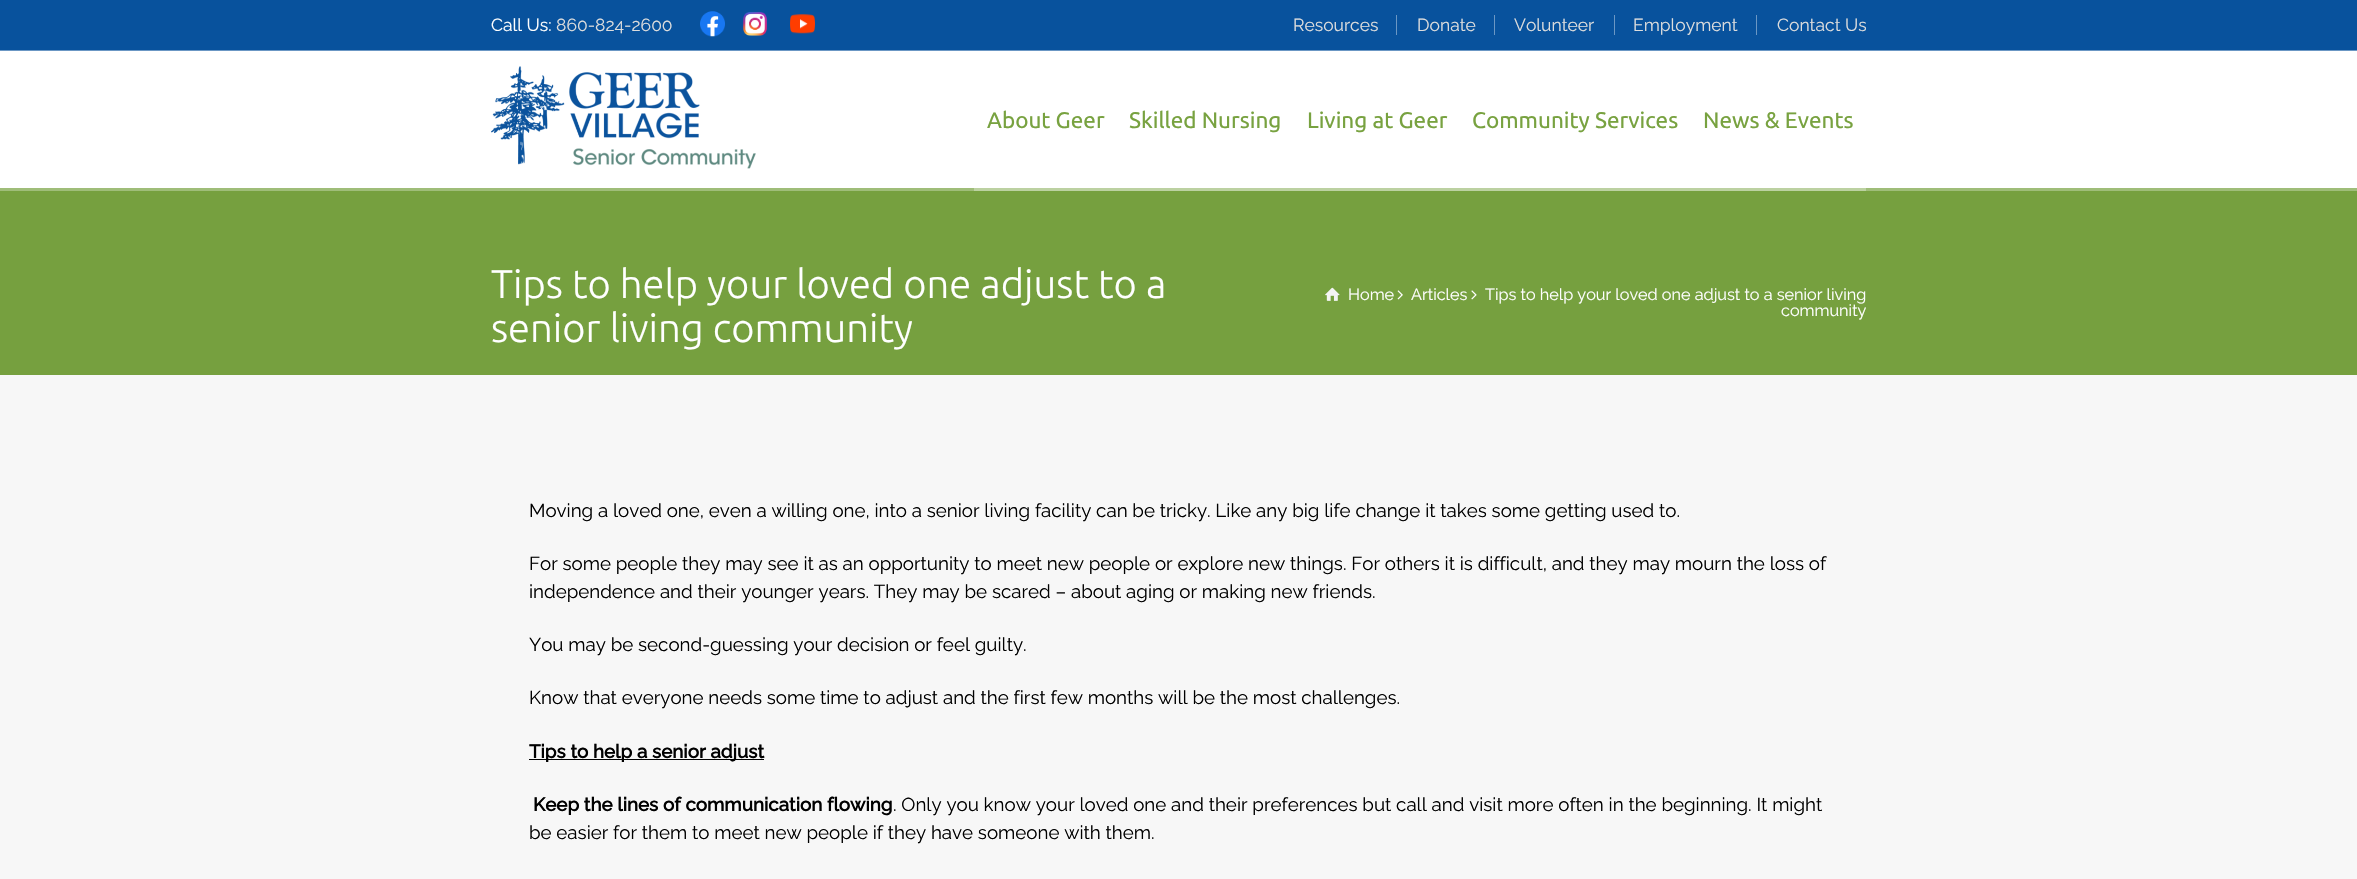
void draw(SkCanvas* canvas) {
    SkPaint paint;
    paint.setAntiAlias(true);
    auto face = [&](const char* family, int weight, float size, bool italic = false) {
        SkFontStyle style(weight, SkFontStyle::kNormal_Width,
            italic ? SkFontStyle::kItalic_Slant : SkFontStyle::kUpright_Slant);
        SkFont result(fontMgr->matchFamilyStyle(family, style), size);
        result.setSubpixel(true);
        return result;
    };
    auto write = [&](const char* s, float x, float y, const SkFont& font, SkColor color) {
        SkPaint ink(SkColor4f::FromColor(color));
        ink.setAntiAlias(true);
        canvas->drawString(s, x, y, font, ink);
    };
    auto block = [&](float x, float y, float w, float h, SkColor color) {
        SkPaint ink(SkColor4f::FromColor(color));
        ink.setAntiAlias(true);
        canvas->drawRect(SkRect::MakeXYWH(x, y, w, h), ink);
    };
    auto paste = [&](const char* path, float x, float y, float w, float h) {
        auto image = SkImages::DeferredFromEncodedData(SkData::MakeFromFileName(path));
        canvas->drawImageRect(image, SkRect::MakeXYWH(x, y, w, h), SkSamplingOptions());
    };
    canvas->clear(SkColorSetRGB(118, 160, 63));
    block(0, 0, 2357, 50, SkColorSetRGB(8, 82, 157));
    block(0, 50, 2357, 1, SkColorSetRGB(107, 151, 196));
    auto kFont1 = face("Raleway", 400, 17.5f);
    write("Call Us:", 491, 31, kFont1, SK_ColorWHITE);
    write("860-824-2600", 556, 31, kFont1, SkColorSetRGB(221, 221, 221));
    paste("pic1.png", 700, 11, 25, 26);
    paste("pic2.png", 742, 12, 26, 24);
    paste("pic3.png", 790, 14, 25, 20);
    write("Resources", 1293, 31, kFont1, SkColorSetRGB(221, 221, 221));
    block(1396, 15, 1, 20, SkColorSetRGB(107, 151, 196));
    write("Donate", 1417, 31, kFont1, SkColorSetRGB(221, 221, 221));
    block(1494, 15, 1, 20, SkColorSetRGB(107, 151, 196));
    write("Volunteer", 1514, 31, kFont1, SkColorSetRGB(221, 221, 221));
    block(1614, 15, 1, 20, SkColorSetRGB(107, 151, 196));
    write("Employment", 1633, 31, kFont1, SkColorSetRGB(221, 221, 221));
    block(1756, 15, 1, 20, SkColorSetRGB(107, 151, 196));
    write("Contact Us", 1777, 31, kFont1, SkColorSetRGB(221, 221, 221));
    block(0, 51, 2357, 137, SK_ColorWHITE);
    paste("pic4.png", 491, 66, 265, 103);
    auto kFont2 = face("Ubuntu", 400, 22.5f);
    write("About Geer", 987, 128, kFont2, SkColorSetRGB(120, 162, 64));
    block(0, 188, 2357, 3, SkColorSetRGB(159, 189, 121));
    block(974, 188, 892, 3, SkColorSetRGB(188, 209, 161));
    write("Skilled Nursing", 1129, 128, kFont2, SkColorSetRGB(120, 162, 64));
    write("Living at Geer", 1307, 128, kFont2, SkColorSetRGB(120, 162, 64));
    write("Community Services", 1472, 128, kFont2, SkColorSetRGB(120, 162, 64));
    write("News & Events", 1703, 128, kFont2, SkColorSetRGB(120, 162, 64));
    auto kFont3 = face("Ubuntu", 300, 40);
    write("Tips to help your loved one adjust to a", 491, 298, kFont3, SK_ColorWHITE);
    write("senior living community", 491, 342, kFont3, SK_ColorWHITE);
    paste("pic5.png", 1325, 287, 15, 14);
    auto kFont4 = face("Raleway", 400, 16.25f);
    write("Home", 1348, 300, kFont4, SK_ColorWHITE);
    paste("pic6.png", 1397, 290, 6, 10);
    write("Articles", 1411, 300, kFont4, SK_ColorWHITE);
    paste("pic7.png", 1471, 290, 6, 10);
    write("Tips to help your loved one adjust to a senior living", 1485, 300, kFont4, SK_ColorWHITE);
    write("community", 1781, 316, kFont4, SK_ColorWHITE);
    block(0, 375, 2357, 504, SkColorSetRGB(247, 247, 247));
    auto kFont5 = face("Raleway", 400, 18.75f);
    write("Moving a loved one, even a willing one, into a senior living facility can be tricky. Like any big life change it takes some getting used to.", 529, 517, kFont5, SK_ColorBLACK);
    write("For some people they may see it as an opportunity to meet new people or explore new things. For others it is difficult, and they may mourn the loss of", 529, 570, kFont5, SK_ColorBLACK);
    write("independence and their younger years. They may be scared – about aging or making new friends.", 529, 598, kFont5, SK_ColorBLACK);
    write("You may be second-guessing your decision or feel guilty.", 529, 651, kFont5, SK_ColorBLACK);
    write("Know that everyone needs some time to adjust and the first few months will be the most challenges.", 529, 704, kFont5, SK_ColorBLACK);
    block(529, 759, 235, 1, SK_ColorBLACK);
    auto kFont6 = face("Raleway", 700, 18.75f);
    write("Tips to help a senior adjust", 529, 758, kFont6, SK_ColorBLACK);
    write("Keep the lines of communication flowing", 533, 811, kFont6, SK_ColorBLACK);
    write(". Only you know your loved one and their preferences but call and visit more often in the beginning. It might", 893, 811, kFont5, SK_ColorBLACK);
    write("be easier for them to meet new people if they have someone with them.", 529, 839, kFont5, SK_ColorBLACK);
}
